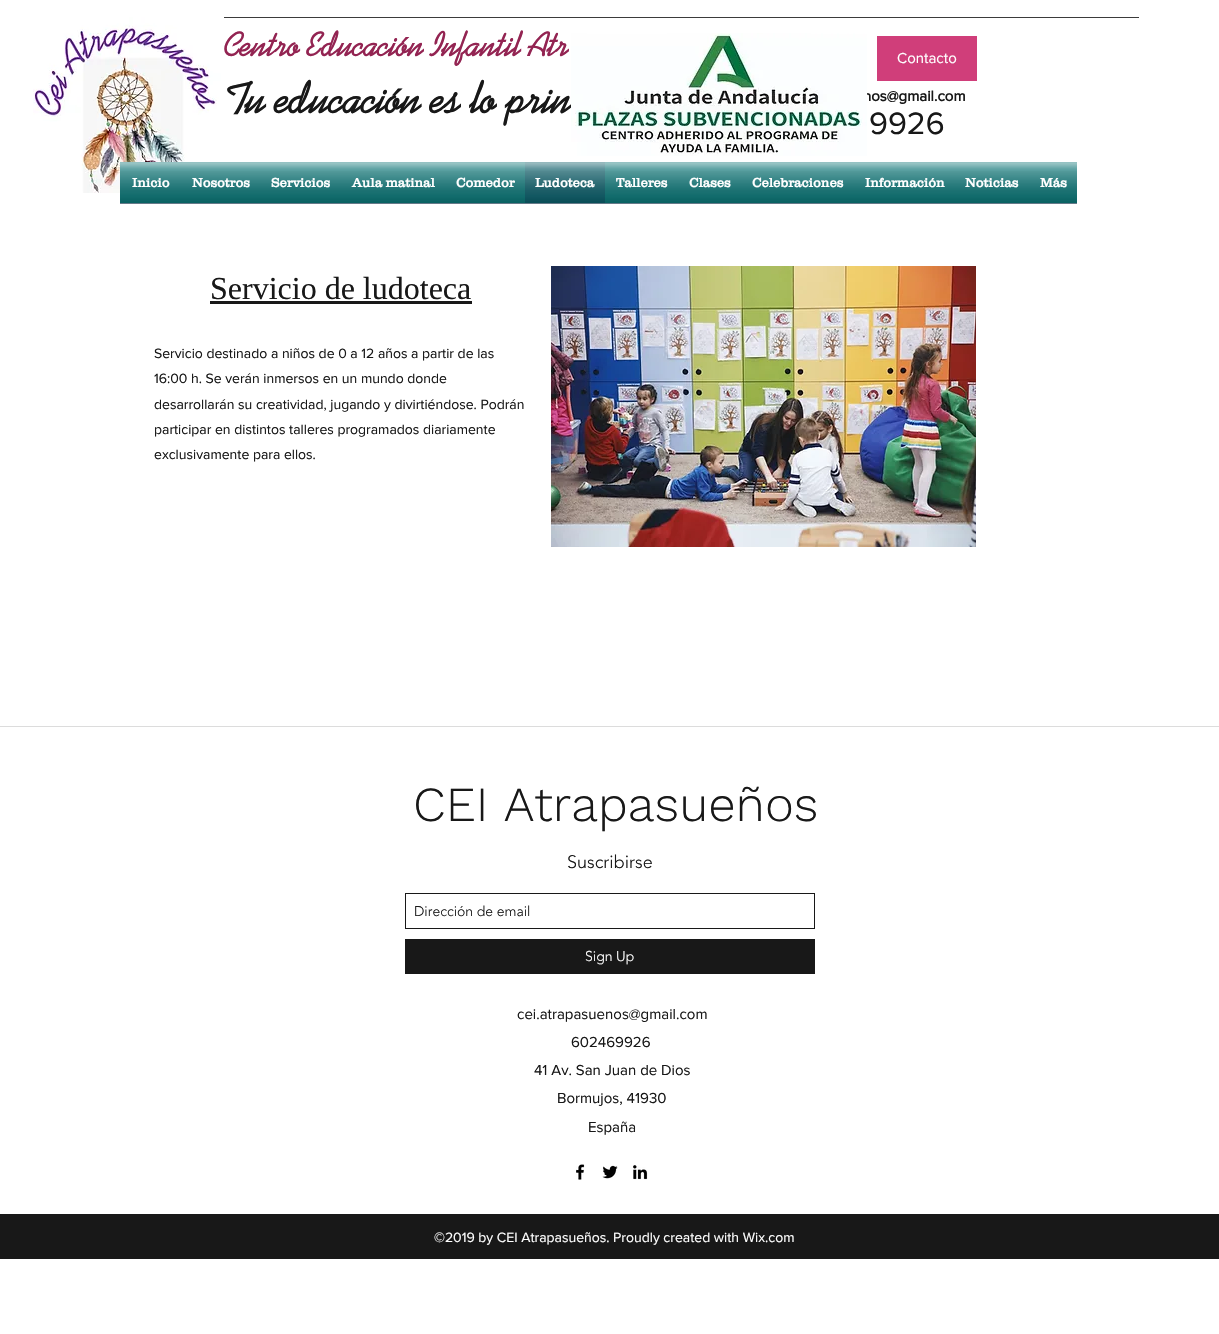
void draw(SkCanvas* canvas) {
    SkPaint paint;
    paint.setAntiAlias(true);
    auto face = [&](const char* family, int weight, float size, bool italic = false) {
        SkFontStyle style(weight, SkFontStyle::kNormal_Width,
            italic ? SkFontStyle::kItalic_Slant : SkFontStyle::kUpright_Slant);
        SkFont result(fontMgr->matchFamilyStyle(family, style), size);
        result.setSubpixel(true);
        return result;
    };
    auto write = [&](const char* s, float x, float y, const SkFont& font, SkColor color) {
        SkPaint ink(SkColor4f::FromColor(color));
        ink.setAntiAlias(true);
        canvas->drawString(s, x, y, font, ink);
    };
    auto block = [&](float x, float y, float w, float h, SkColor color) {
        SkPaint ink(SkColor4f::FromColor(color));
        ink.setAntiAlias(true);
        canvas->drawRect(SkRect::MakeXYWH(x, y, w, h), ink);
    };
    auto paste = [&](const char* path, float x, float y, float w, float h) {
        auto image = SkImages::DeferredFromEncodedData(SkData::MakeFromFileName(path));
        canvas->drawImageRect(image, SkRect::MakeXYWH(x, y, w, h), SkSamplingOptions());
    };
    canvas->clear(SK_ColorWHITE);
    block(224, 17, 915, 1, SkColorSetRGB(59, 59, 59));
    paste("pic1.png", 33, 17, 191, 176);
    auto kFont1 = face("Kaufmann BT", 700, 34);
    write("Centro Educación Infantil Atr", 224, 56, kFont1, SkColorSetRGB(147, 36, 82));
    auto kFont2 = face("Kaufmann BT", 700, 44);
    write("Tu educación es lo prin", 224, 113, kFont2, SkColorSetRGB(24, 24, 24));
    block(877, 36, 100, 45, SkColorSetRGB(208, 62, 122));
    auto kFont3 = face("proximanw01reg", 400, 15);
    write("Contacto", 897, 63, kFont3, SK_ColorWHITE);
    auto kFont4 = face("proximanw01reg", 700, 15);
    write("nos@gmail.com", 863, 101, kFont4, SkColorSetRGB(24, 24, 24));
    auto kFont5 = face("proximanw01reg", 400, 32);
    write("9926", 869, 134, kFont5, SkColorSetRGB(24, 24, 24));
    paste("pic2.png", 571, 33, 296, 123);
    block(120, 203, 957, 1, SkColorSetRGB(103, 122, 137));
    block(120, 162, 405, 41, SkColorSetRGB(0, 108, 109));
    paste("pic3.png", 120, 162, 60, 41);
    paste("pic4.png", 120, 171, 60, 32);
    auto kFont6 = face("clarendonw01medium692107", 700, 13);
    write("Inicio", 132, 187, kFont6, SK_ColorWHITE);
    paste("pic5.png", 180, 162, 80, 41);
    paste("pic6.png", 180, 171, 80, 32);
    write("Nosotros", 192, 187, kFont6, SK_ColorWHITE);
    paste("pic7.png", 260, 162, 81, 41);
    paste("pic8.png", 260, 171, 81, 32);
    write("Servicios", 271, 187, kFont6, SK_ColorWHITE);
    paste("pic9.png", 341, 162, 104, 41);
    paste("pic10.png", 341, 171, 104, 32);
    write("Aula matinal", 352, 187, kFont6, SK_ColorWHITE);
    paste("pic5.png", 445, 162, 80, 41);
    paste("pic6.png", 445, 171, 80, 32);
    write("Comedor", 456, 187, kFont6, SK_ColorWHITE);
    block(525, 162, 80, 41, SkColorSetRGB(0, 83, 95));
    paste("pic11.png", 525, 162, 80, 41);
    paste("pic12.png", 525, 171, 80, 32);
    write("Ludoteca", 535, 187, kFont6, SK_ColorWHITE);
    block(605, 162, 472, 41, SkColorSetRGB(0, 108, 109));
    paste("pic13.png", 605, 162, 73, 41);
    paste("pic14.png", 605, 171, 73, 32);
    write("Talleres", 616, 187, kFont6, SK_ColorWHITE);
    paste("pic15.png", 678, 162, 63, 41);
    paste("pic16.png", 678, 171, 63, 32);
    write("Clases", 689, 187, kFont6, SK_ColorWHITE);
    paste("pic17.png", 741, 162, 113, 41);
    paste("pic18.png", 741, 171, 113, 32);
    write("Celebraciones", 752, 187, kFont6, SK_ColorWHITE);
    paste("pic19.png", 854, 162, 101, 41);
    paste("pic20.png", 854, 171, 101, 32);
    write("Información", 865, 187, kFont6, SK_ColorWHITE);
    paste("pic21.png", 955, 162, 74, 41);
    paste("pic22.png", 955, 171, 74, 32);
    write("Noticias", 965, 187, kFont6, SK_ColorWHITE);
    paste("pic23.png", 1029, 162, 48, 41);
    paste("pic24.png", 1029, 171, 48, 32);
    write("Más", 1040, 187, kFont6, SK_ColorWHITE);
    auto kFont7 = face("Liberation Serif", 400, 32);
    write("Servicio de ludoteca", 210, 299, kFont7, SkColorSetRGB(24, 24, 24));
    block(210, 301, 262, 3, SkColorSetRGB(24, 24, 24));
    paste("pic25.png", 551, 266, 425, 281);
    auto kFont8 = face("proximanw01reg", 400, 14);
    write("Servicio destinado a niños de 0 a 12 años a partir de las", 154, 358, kFont8, SkColorSetRGB(24, 24, 24));
    write("16:00 h. Se verán inmersos en un mundo donde", 154, 383, kFont8, SkColorSetRGB(24, 24, 24));
    write("desarrollarán su creatividad, jugando y divirtiéndose. Podrán", 154, 409, kFont8, SkColorSetRGB(24, 24, 24));
    write("participar en distintos talleres programados diariamente", 154, 434, kFont8, SkColorSetRGB(24, 24, 24));
    write("exclusivamente para ellos.", 154, 459, kFont8, SkColorSetRGB(24, 24, 24));
    block(0, 726, 1219, 1, SkColorSetRGB(220, 220, 220));
    auto kFont9 = face("Work Sans", 300, 49);
    write("CEI Atrapasueños", 413, 821, kFont9, SkColorSetRGB(24, 24, 24));
    auto kFont10 = face("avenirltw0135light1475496", 300, 18);
    write("Suscribirse", 567, 868, kFont10, SkColorSetRGB(24, 24, 24));
    paint.setStyle(SkPaint::kStroke_Style);
    paint.setStrokeWidth(1);
    paint.setColor(SkColorSetRGB(24, 24, 24));
    canvas->drawRect(SkRect::MakeXYWH(405.5f, 893.5f, 409, 35), paint);
    auto kFont11 = face("avenirltw0135light1475496", 300, 14);
    write("Dirección de email", 414, 916, kFont11, SkColorSetRGB(24, 24, 24));
    block(405, 939, 410, 35, SkColorSetRGB(24, 24, 24));
    write("Sign Up", 585, 961, kFont11, SK_ColorWHITE);
    write("cei.atrapasuenos@gmail.com", 517, 1019, kFont3, SkColorSetRGB(24, 24, 24));
    write("602469926", 571, 1047, kFont3, SkColorSetRGB(24, 24, 24));
    write("41 Av. San Juan de Dios", 534, 1075, kFont3, SkColorSetRGB(24, 24, 24));
    write("Bormujos, 41930", 557, 1103, kFont3, SkColorSetRGB(24, 24, 24));
    write("España", 588, 1132, kFont3, SkColorSetRGB(24, 24, 24));
    paste("pic26.png", 576, 1164, 9, 16);
    paste("pic27.png", 602, 1165, 16, 14);
    paste("pic28.png", 633, 1165, 15, 15);
    block(0, 1214, 1219, 45, SkColorSetRGB(24, 24, 24));
    write("©2019 by CEI Atrapasueños. Proudly created with Wix.com", 434, 1242, kFont8, SK_ColorWHITE);
}
